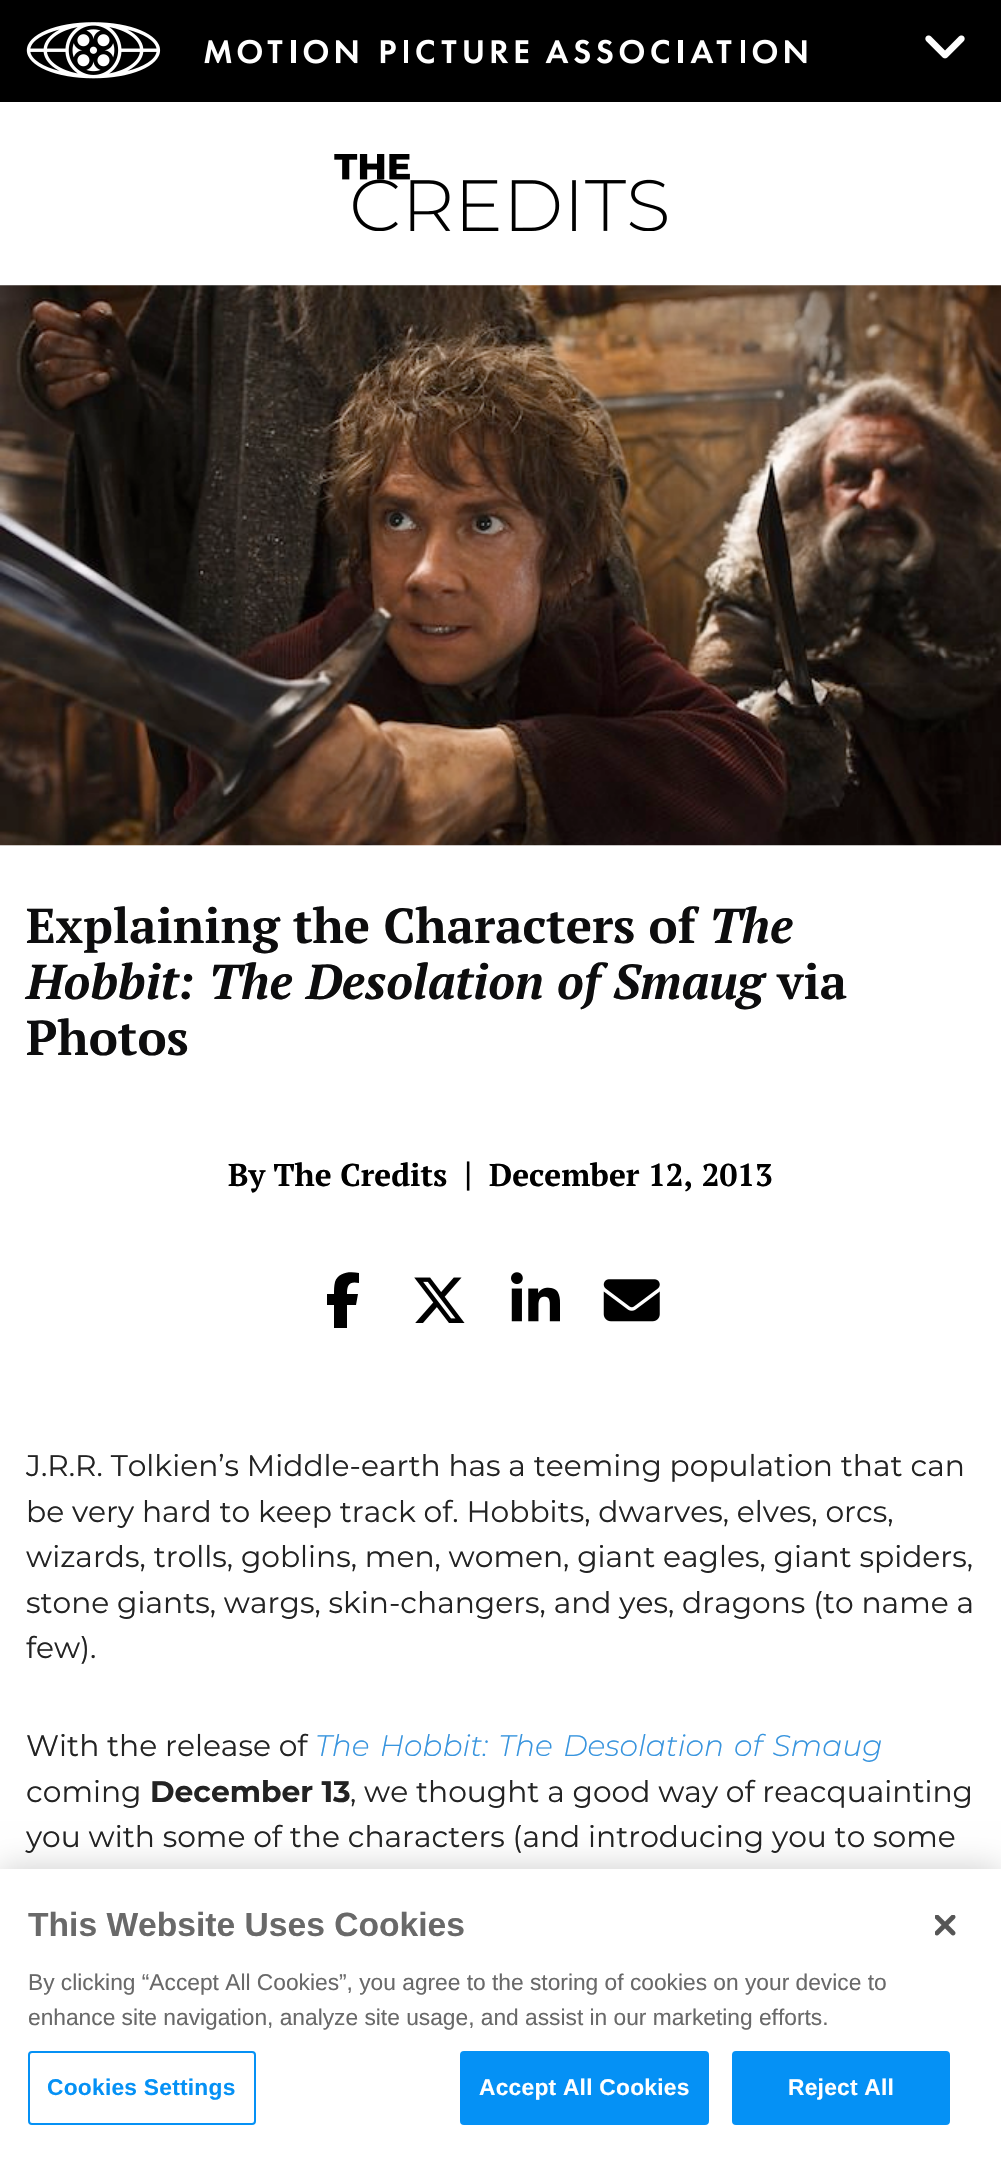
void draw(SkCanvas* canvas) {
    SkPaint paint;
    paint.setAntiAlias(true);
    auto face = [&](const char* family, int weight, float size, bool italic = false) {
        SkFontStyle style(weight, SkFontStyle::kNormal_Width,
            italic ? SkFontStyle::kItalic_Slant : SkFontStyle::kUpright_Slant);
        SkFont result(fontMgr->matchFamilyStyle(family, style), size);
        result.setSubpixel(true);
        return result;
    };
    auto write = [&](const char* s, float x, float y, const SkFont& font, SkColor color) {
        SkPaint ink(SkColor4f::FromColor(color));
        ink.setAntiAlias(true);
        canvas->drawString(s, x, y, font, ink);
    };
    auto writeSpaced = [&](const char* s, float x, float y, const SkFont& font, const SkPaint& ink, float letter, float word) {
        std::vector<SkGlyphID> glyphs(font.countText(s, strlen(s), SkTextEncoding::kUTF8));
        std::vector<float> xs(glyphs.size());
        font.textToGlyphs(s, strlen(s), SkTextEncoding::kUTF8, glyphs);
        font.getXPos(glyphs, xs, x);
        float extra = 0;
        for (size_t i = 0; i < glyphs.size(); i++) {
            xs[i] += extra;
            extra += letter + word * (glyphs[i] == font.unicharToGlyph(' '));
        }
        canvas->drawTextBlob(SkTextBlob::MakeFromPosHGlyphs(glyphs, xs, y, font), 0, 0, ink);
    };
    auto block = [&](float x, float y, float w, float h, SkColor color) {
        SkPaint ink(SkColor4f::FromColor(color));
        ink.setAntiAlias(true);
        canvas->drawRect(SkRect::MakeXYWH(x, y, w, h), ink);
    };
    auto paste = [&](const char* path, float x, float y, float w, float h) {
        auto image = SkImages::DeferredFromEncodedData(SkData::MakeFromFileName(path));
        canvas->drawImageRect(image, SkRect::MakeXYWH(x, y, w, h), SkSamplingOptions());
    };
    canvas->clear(SK_ColorWHITE);
    block(0, 0, 1001, 102, SK_ColorBLACK);
    paste("pic1.png", 26, 22, 781, 57);
    paste("pic2.png", 925, 35, 40, 24);
    paste("pic3.png", 334, 154, 333, 77);
    paste("pic4.png", 0, 285, 1001, 561);
    auto kFont1 = face("PT Serif", 700, 49);
    write("Explaining the Characters of", 26, 943, kFont1, SkColorSetRGB(13, 13, 14));
    auto kFont2 = face("PT Serif", 700, 49, true);
    write("The", 709, 943, kFont2, SkColorSetRGB(13, 13, 14));
    write("Hobbit: The Desolation of Smaug", 26, 999, kFont2, SkColorSetRGB(13, 13, 14));
    write("via", 777, 999, kFont1, SkColorSetRGB(13, 13, 14));
    write("Photos", 26, 1055, kFont1, SkColorSetRGB(13, 13, 14));
    auto kFont3 = face("PT Serif", 700, 31.5f);
    write("By The Credits", 228, 1186, kFont3, SK_ColorBLACK);
    auto kFont4 = face("PT Serif", 700, 35);
    write("|", 464, 1186, kFont4, SK_ColorBLACK);
    write("December 12, 2013", 489, 1186, kFont3, SK_ColorBLACK);
    paint.setColor(SK_ColorBLACK);
    canvas->drawPath(SkPathBuilder().moveTo(334, 1305).lineTo(334, 1328).lineTo(334, 1305).lineTo(334, 1328).lineTo(347, 1328).lineTo(347, 1305).lineTo(356, 1305).lineTo(358, 1294).lineTo(347, 1294).cubicTo(347, 1285, 349, 1281, 359, 1283).lineTo(359, 1273).cubicTo(350, 1271, 338, 1272, 335, 1282).cubicTo(334, 1286, 334, 1290, 334, 1294).lineTo(327, 1294).lineTo(327, 1305).close().detach(), paint);
    paste("pic5.png", 414, 1277, 51, 46);
    paste("pic6.png", 511, 1272, 49, 50);
    paste("pic7.png", 603, 1279, 57, 43);
    auto kFont5 = face("Montserrat", 400, 29.75f);
    write("J.R.R. Tolkien’s Middle-earth has a teeming population that can", 26, 1476, kFont5, SkColorSetRGB(35, 35, 35));
    write("be very hard to keep track of. Hobbits, dwarves, elves, orcs,", 26, 1522, kFont5, SkColorSetRGB(35, 35, 35));
    write("wizards, trolls, goblins, men, women, giant eagles, giant spiders,", 26, 1567, kFont5, SkColorSetRGB(35, 35, 35));
    write("stone giants, wargs, skin-changers, and yes, dragons (to name a", 26, 1613, kFont5, SkColorSetRGB(35, 35, 35));
    write("few).", 26, 1658, kFont5, SkColorSetRGB(35, 35, 35));
    write("With the release of", 26, 1756, kFont5, SkColorSetRGB(35, 35, 35));
    auto kFont6 = face("Montserrat", 300, 29.75f, true);
    paint.setColor(SkColorSetRGB(55, 148, 222));
    writeSpaced("The Hobbit: The Desolation of Smaug", 315, 1756, kFont6, paint, 0, 2.5f);
    write("coming", 26, 1802, kFont5, SkColorSetRGB(35, 35, 35));
    auto kFont7 = face("Montserrat", 700, 29.75f);
    write("December 13", 150, 1802, kFont7, SkColorSetRGB(35, 35, 35));
    write(", we thought a good way of reacquainting", 350, 1802, kFont5, SkColorSetRGB(35, 35, 35));
    write("you with some of the characters (and introducing you to some", 26, 1847, kFont5, SkColorSetRGB(35, 35, 35));
    paint.setColor(SkColorSetARGB(51, 0, 0, 0));
    paint.setMaskFilter(SkMaskFilter::MakeBlur(kNormal_SkBlurStyle, 16));
    canvas->drawRect(SkRect::MakeXYWH(0, 1869, 1001, 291), paint);
    paint.setMaskFilter(nullptr);
    block(0, 1869, 1001, 290, SK_ColorWHITE);
    auto kFont8 = face("Liberation Sans", 700, 33.6f);
    write("This Website Uses Cookies", 28, 1936, kFont8, SkColorSetRGB(105, 105, 105));
    auto kFont9 = face("Liberation Sans", 400, 22.75f);
    write("By clicking “Accept All Cookies”, you agree to the storing of cookies on your device to", 28, 1990, kFont9, SkColorSetRGB(105, 105, 105));
    write("enhance site navigation, analyze site usage, and assist in our marketing efforts.", 28, 2025, kFont9, SkColorSetRGB(105, 105, 105));
    paint.setStyle(SkPaint::kStroke_Style);
    paint.setStrokeWidth(2);
    paint.setColor(SkColorSetRGB(5, 145, 245));
    canvas->drawRoundRect(SkRect::MakeXYWH(29, 2052, 226, 72), 3, 3, paint);
    auto kFont10 = face("Liberation Sans", 700, 22.75f);
    paint.setStyle(SkPaint::kFill_Style);
    writeSpaced("Cookies Settings", 47, 2095, kFont10, paint, 0.25f, 0);
    canvas->drawRoundRect(SkRect::MakeXYWH(461, 2052, 247, 72), 3, 3, paint);
    paint.setStyle(SkPaint::kStroke_Style);
    canvas->drawRoundRect(SkRect::MakeXYWH(461, 2052, 247, 72), 3, 3, paint);
    paint.setStyle(SkPaint::kFill_Style);
    paint.setColor(SK_ColorWHITE);
    writeSpaced("Accept All Cookies", 479, 2095, kFont10, paint, 0.25f, 0);
    paint.setColor(SkColorSetRGB(5, 145, 245));
    canvas->drawRoundRect(SkRect::MakeXYWH(733, 2052, 216, 72), 3, 3, paint);
    paint.setStyle(SkPaint::kStroke_Style);
    canvas->drawRoundRect(SkRect::MakeXYWH(733, 2052, 216, 72), 3, 3, paint);
    paint.setStyle(SkPaint::kFill_Style);
    paint.setColor(SK_ColorWHITE);
    writeSpaced("Reject All", 788, 2095, kFont10, paint, 0.25f, 0);
    paste("pic8.png", 935, 1915, 21, 21);
}
